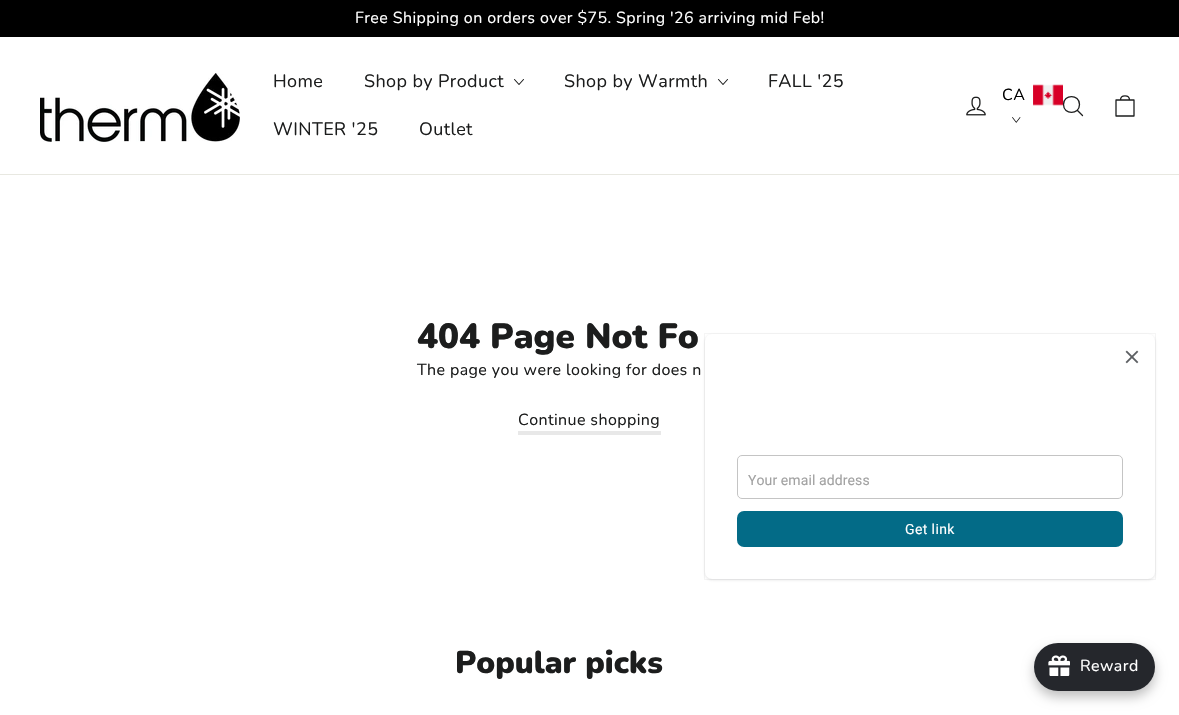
void draw(SkCanvas* canvas) {
    SkPaint paint;
    paint.setAntiAlias(true);
    auto face = [&](const char* family, int weight, float size, bool italic = false) {
        SkFontStyle style(weight, SkFontStyle::kNormal_Width,
            italic ? SkFontStyle::kItalic_Slant : SkFontStyle::kUpright_Slant);
        SkFont result(fontMgr->matchFamilyStyle(family, style), size);
        result.setSubpixel(true);
        return result;
    };
    auto write = [&](const char* s, float x, float y, const SkFont& font, SkColor color) {
        SkPaint ink(SkColor4f::FromColor(color));
        ink.setAntiAlias(true);
        canvas->drawString(s, x, y, font, ink);
    };
    auto writeSpaced = [&](const char* s, float x, float y, const SkFont& font, const SkPaint& ink, float letter, float word) {
        std::vector<SkGlyphID> glyphs(font.countText(s, strlen(s), SkTextEncoding::kUTF8));
        std::vector<float> xs(glyphs.size());
        font.textToGlyphs(s, strlen(s), SkTextEncoding::kUTF8, glyphs);
        font.getXPos(glyphs, xs, x);
        float extra = 0;
        for (size_t i = 0; i < glyphs.size(); i++) {
            xs[i] += extra;
            extra += letter + word * (glyphs[i] == font.unicharToGlyph(' '));
        }
        canvas->drawTextBlob(SkTextBlob::MakeFromPosHGlyphs(glyphs, xs, y, font), 0, 0, ink);
    };
    auto block = [&](float x, float y, float w, float h, SkColor color) {
        SkPaint ink(SkColor4f::FromColor(color));
        ink.setAntiAlias(true);
        canvas->drawRect(SkRect::MakeXYWH(x, y, w, h), ink);
    };
    auto card = [&](float x, float y, float w, float h, float radius, SkColor color) {
        SkPaint ink(SkColor4f::FromColor(color));
        ink.setAntiAlias(true);
        canvas->drawRoundRect(SkRect::MakeXYWH(x, y, w, h), radius, radius, ink);
    };
    auto paste = [&](const char* path, float x, float y, float w, float h) {
        auto image = SkImages::DeferredFromEncodedData(SkData::MakeFromFileName(path));
        canvas->drawImageRect(image, SkRect::MakeXYWH(x, y, w, h), SkSamplingOptions());
    };
    canvas->clear(SK_ColorWHITE);
    block(0, 0, 1179, 37, SK_ColorBLACK);
    auto kFont1 = face("Nunito", 400, 16);
    paint.setColor(SK_ColorWHITE);
    writeSpaced("Free Shipping on orders over $75. Spring '26 arriving mid Feb!", 355, 23, kFont1, paint, 0.4f, 0);
    block(0, 174, 1179, 1, SkColorSetRGB(232, 232, 225));
    paste("pic1.png", 40, 73, 200, 69);
    auto kFont2 = face("Nunito", 400, 18);
    paint.setColor(SkColorSetRGB(28, 29, 29));
    writeSpaced("Home", 273, 87, kFont2, paint, 0.4f, 0);
    writeSpaced("Shop by Product", 364, 87, kFont2, paint, 0.4f, 0);
    paint.setStyle(SkPaint::kStroke_Style);
    paint.setStrokeWidth(1.1f);
    paint.setStrokeCap(SkPaint::kRound_Cap);
    paint.setStrokeJoin(SkPaint::kRound_Join);
    canvas->drawPath(SkPathBuilder().moveTo(514.5f, 79.5f).lineTo(519, 84.5f).lineTo(523.5f, 79.5f).detach(), paint);
    paint.setStyle(SkPaint::kFill_Style);
    writeSpaced("Shop by Warmth", 564, 87, kFont2, paint, 0.4f, 0);
    paint.setStyle(SkPaint::kStroke_Style);
    canvas->drawPath(SkPathBuilder().moveTo(718.5f, 79.5f).lineTo(723, 84.5f).lineTo(727.5f, 79.5f).detach(), paint);
    paint.setStyle(SkPaint::kFill_Style);
    writeSpaced("FALL '25", 768, 87, kFont2, paint, 0.4f, 0);
    writeSpaced("WINTER '25", 273, 135, kFont2, paint, 0.4f, 0);
    writeSpaced("Outlet", 419, 135, kFont2, paint, 0.4f, 0);
    paste("pic2.png", 966, 96, 20, 20);
    paint.setColor(SK_ColorBLACK);
    writeSpaced("CA", 1002, 100, kFont1, paint, 0.4f, 0);
    paint.setStyle(SkPaint::kStroke_Style);
    paint.setStrokeWidth(1.3f);
    paint.setColor(SkColorSetRGB(28, 29, 29));
    canvas->drawPath(SkPathBuilder().moveTo(1079.5f, 104.5f).cubicTo(1079.5f, 115, 1063.5f, 115, 1063.5f, 104.5f).cubicTo(1063.5f, 94, 1079.5f, 94, 1079.5f, 104.5f).close().moveTo(1082.5f, 115.5f).lineTo(1077.5f, 110.5f).detach(), paint);
    paste("pic3.png", 1033, 84, 30, 22);
    paste("pic4.png", 1012, 117, 9, 6);
    canvas->drawPath(SkPathBuilder().moveTo(1116, 100).lineTo(1134, 100).lineTo(1134, 116).lineTo(1116, 116).close().moveTo(1120.5f, 100).cubicTo(1120.5f, 94.5f, 1129.5f, 94.5f, 1129.5f, 100).detach(), paint);
    auto kFont3 = face("Nunito", 900, 35);
    write("404 Page Not Fo", 417, 348, kFont3, SkColorSetRGB(28, 29, 29));
    paint.setStyle(SkPaint::kFill_Style);
    writeSpaced("The page you were looking for does n", 417, 375, kFont1, paint, 0.4f, 0);
    writeSpaced("Continue shopping", 518, 425, kFont1, paint, 0.4f, 0);
    block(518, 431, 143, 4, SkColorSetRGB(232, 232, 232));
    auto kFont4 = face("Nunito", 900, 31.5f);
    write("Popular picks", 455, 673, kFont4, SkColorSetRGB(28, 29, 29));
    paint.setColor(SkColorSetARGB(38, 63, 63, 68));
    paint.setMaskFilter(SkMaskFilter::MakeBlur(kNormal_SkBlurStyle, 1.5f));
    canvas->drawRoundRect(SkRect::MakeXYWH(705, 335, 450, 245), 7, 7, paint);
    paint.setMaskFilter(nullptr);
    paint.setStyle(SkPaint::kStroke_Style);
    paint.setStrokeWidth(1);
    paint.setStrokeCap(SkPaint::kButt_Cap);
    paint.setStrokeJoin(SkPaint::kMiter_Join);
    paint.setColor(SkColorSetARGB(13, 63, 63, 68));
    canvas->drawRect(SkRect::MakeXYWH(704.5f, 333.5f, 451, 246), paint);
    card(705, 334, 450, 245, 7, SK_ColorWHITE);
    paste("pic5.png", 1125, 350, 14, 14);
    paint.setColor(SkColorSetRGB(196, 196, 196));
    canvas->drawRoundRect(SkRect::MakeXYWH(737.5f, 455.5f, 385, 43), 4.5f, 4.5f, paint);
    auto kFont5 = face("Roboto", 400, 14);
    paint.setStyle(SkPaint::kFill_Style);
    paint.setColor(SkColorSetRGB(162, 162, 162));
    writeSpaced("Your email address", 748, 485, kFont5, paint, 0.1f, 0);
    card(737, 511, 386, 36, 7, SkColorSetRGB(3, 107, 135));
    paint.setColor(SK_ColorWHITE);
    writeSpaced("Get link", 905, 534, kFont5, paint, 0.4f, 0);
    paint.setColor(SkColorSetARGB(64, 0, 0, 0));
    paint.setMaskFilter(SkMaskFilter::MakeBlur(kNormal_SkBlurStyle, 6));
    canvas->drawRoundRect(SkRect::MakeXYWH(1034, 649, 121, 48), 24, 24, paint);
    paint.setMaskFilter(nullptr);
    card(1034, 643, 121, 48, 24, SkColorSetRGB(37, 39, 44));
    paste("pic6.png", 1048, 655, 22, 21);
    paint.setColor(SK_ColorWHITE);
    writeSpaced("Reward", 1080, 671, kFont1, paint, 0.4f, 0);
}
